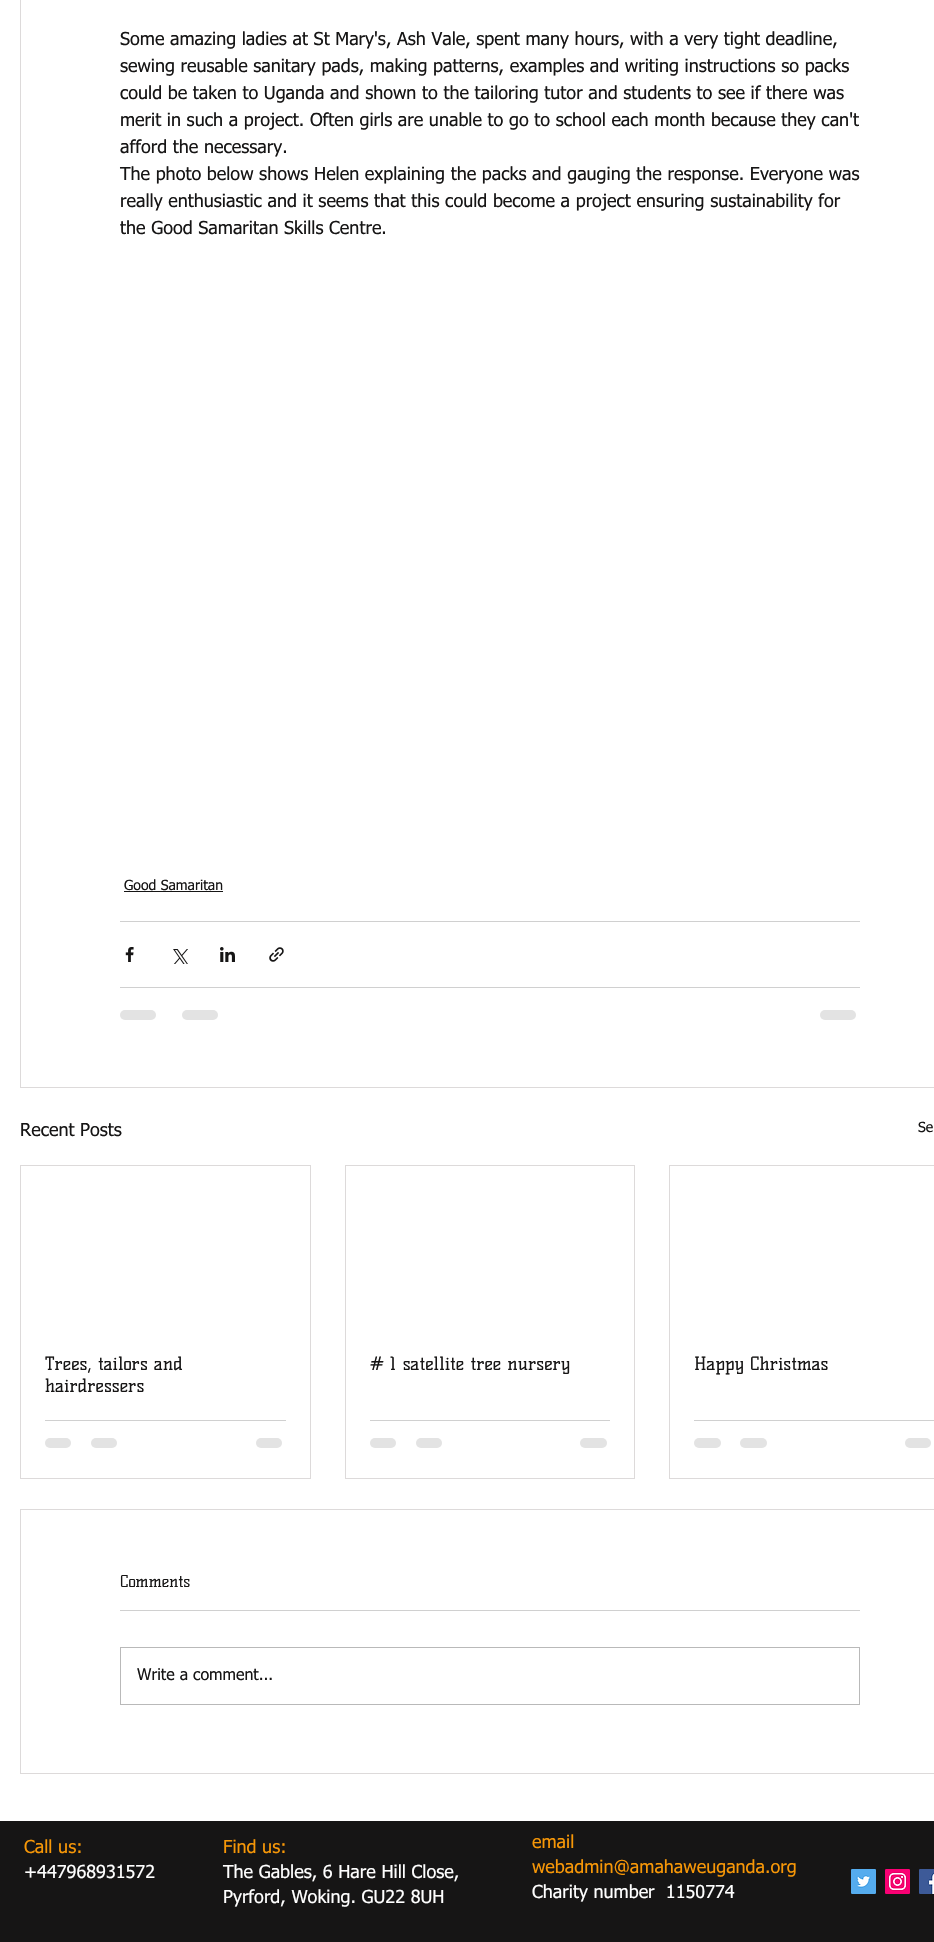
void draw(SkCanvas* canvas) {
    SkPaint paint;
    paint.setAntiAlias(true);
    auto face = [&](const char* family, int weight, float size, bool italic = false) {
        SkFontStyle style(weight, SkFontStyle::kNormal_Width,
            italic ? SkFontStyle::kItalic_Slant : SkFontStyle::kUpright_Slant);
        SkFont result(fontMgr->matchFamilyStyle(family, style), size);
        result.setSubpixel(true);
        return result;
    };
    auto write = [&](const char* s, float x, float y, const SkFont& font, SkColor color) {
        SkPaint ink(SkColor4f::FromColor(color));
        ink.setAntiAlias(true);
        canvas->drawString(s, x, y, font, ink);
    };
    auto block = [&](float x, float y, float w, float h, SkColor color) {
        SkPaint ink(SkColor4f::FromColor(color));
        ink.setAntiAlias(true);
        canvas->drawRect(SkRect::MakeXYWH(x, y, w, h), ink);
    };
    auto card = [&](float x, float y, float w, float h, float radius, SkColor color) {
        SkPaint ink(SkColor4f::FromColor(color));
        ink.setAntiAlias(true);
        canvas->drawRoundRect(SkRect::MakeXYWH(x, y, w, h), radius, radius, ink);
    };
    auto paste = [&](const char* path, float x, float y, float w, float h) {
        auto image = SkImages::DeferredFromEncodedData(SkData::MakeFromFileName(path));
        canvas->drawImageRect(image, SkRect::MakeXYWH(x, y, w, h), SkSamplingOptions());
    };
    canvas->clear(SK_ColorWHITE);
    paint.setStyle(SkPaint::kStroke_Style);
    paint.setStrokeWidth(1);
    paint.setColor(SkColorSetRGB(221, 218, 218));
    canvas->drawRect(SkRect::MakeXYWH(20.5f, -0.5f, 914, 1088), paint);
    auto kFont1 = face("tahoma", 400, 18);
    write("Some amazing ladies at St Mary's, Ash Vale, spent many hours, with a very tight deadline,", 120, 45, kFont1, SkColorSetRGB(22, 21, 21));
    write("sewing reusable sanitary pads, making patterns, examples and writing instructions so packs", 120, 72, kFont1, SkColorSetRGB(22, 21, 21));
    write("could be taken to Uganda and shown to the tailoring tutor and students to see if there was", 120, 99, kFont1, SkColorSetRGB(22, 21, 21));
    write("merit in such a project. Often girls are unable to go to school each month because they can't", 120, 126, kFont1, SkColorSetRGB(22, 21, 21));
    write("afford the necessary.", 120, 153, kFont1, SkColorSetRGB(22, 21, 21));
    write("The photo below shows Helen explaining the packs and gauging the response. Everyone was", 120, 180, kFont1, SkColorSetRGB(22, 21, 21));
    write("really enthusiastic and it seems that this could become a project ensuring sustainability for", 120, 207, kFont1, SkColorSetRGB(22, 21, 21));
    write("the Good Samaritan Skills Centre.", 120, 234, kFont1, SkColorSetRGB(22, 21, 21));
    auto kFont2 = face("tahoma", 400, 14);
    write("Good Samaritan", 124, 890, kFont2, SkColorSetRGB(22, 21, 21));
    block(124, 891, 99, 1, SkColorSetRGB(22, 21, 21));
    block(120, 921, 740, 1, SkColorSetRGB(208, 208, 208));
    paste("pic1.png", 125, 947, 9, 15);
    paste("pic2.png", 173, 949, 15, 15);
    paste("pic3.png", 220, 947, 15, 15);
    paste("pic4.png", 269, 947, 15, 15);
    block(120, 987, 740, 1, SkColorSetRGB(208, 208, 208));
    card(120, 1010, 36, 10, 5, SkColorSetRGB(227, 227, 227));
    card(182, 1010, 36, 10, 5, SkColorSetRGB(227, 227, 227));
    card(820, 1010, 36, 10, 5, SkColorSetRGB(227, 227, 227));
    write("Recent Posts", 20, 1136, kFont1, SkColorSetRGB(22, 21, 21));
    write("Se", 918, 1132, kFont2, SkColorSetRGB(22, 21, 21));
    canvas->drawRect(SkRect::MakeXYWH(20.5f, 1165.5f, 290, 313), paint);
    auto kFont3 = face("Kelly Slab", 400, 18);
    write("Trees, tailors and", 45, 1370, kFont3, SkColorSetRGB(22, 21, 21));
    write("hairdressers", 45, 1392, kFont3, SkColorSetRGB(22, 21, 21));
    block(45, 1420, 241, 1, SkColorSetRGB(208, 208, 208));
    card(45, 1438, 26, 10, 5, SkColorSetRGB(227, 227, 227));
    card(91, 1438, 26, 10, 5, SkColorSetRGB(227, 227, 227));
    card(256, 1438, 26, 10, 5, SkColorSetRGB(227, 227, 227));
    canvas->drawRect(SkRect::MakeXYWH(345.5f, 1165.5f, 289, 313), paint);
    write("# 1 satellite tree nursery", 370, 1370, kFont3, SkColorSetRGB(22, 21, 21));
    block(370, 1420, 240, 1, SkColorSetRGB(208, 208, 208));
    card(370, 1438, 26, 10, 5, SkColorSetRGB(227, 227, 227));
    card(416, 1438, 26, 10, 5, SkColorSetRGB(227, 227, 227));
    card(580, 1438, 27, 10, 5, SkColorSetRGB(227, 227, 227));
    canvas->drawRect(SkRect::MakeXYWH(669.5f, 1165.5f, 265, 313), paint);
    write("Happy Christmas", 694, 1370, kFont3, SkColorSetRGB(22, 21, 21));
    block(694, 1420, 240, 1, SkColorSetRGB(208, 208, 208));
    card(694, 1438, 27, 10, 5, SkColorSetRGB(227, 227, 227));
    card(740, 1438, 27, 10, 5, SkColorSetRGB(227, 227, 227));
    card(905, 1438, 26, 10, 5, SkColorSetRGB(227, 227, 227));
    canvas->drawRect(SkRect::MakeXYWH(20.5f, 1509.5f, 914, 264), paint);
    auto kFont4 = face("Kelly Slab", 400, 16);
    write("Comments", 120, 1587, kFont4, SkColorSetRGB(22, 21, 21));
    block(120, 1610, 740, 1, SkColorSetRGB(208, 208, 208));
    paint.setColor(SkColorSetRGB(185, 185, 185));
    canvas->drawRect(SkRect::MakeXYWH(120.5f, 1647.5f, 739, 57), paint);
    auto kFont5 = face("tahoma", 400, 16);
    write("Write a comment...", 137, 1680, kFont5, SkColorSetRGB(22, 21, 21));
    block(0, 1821, 934, 121, SkColorSetRGB(22, 21, 21));
    write("Call us:", 24, 1853, kFont1, SkColorSetRGB(247, 151, 7));
    write("+447968931572", 24, 1878, kFont1, SK_ColorWHITE);
    write("Find us:", 223, 1853, kFont1, SkColorSetRGB(247, 151, 7));
    write("The Gables, 6 Hare Hill Close,", 223, 1878, kFont1, SK_ColorWHITE);
    write("Pyrford, Woking. GU22 8UH", 223, 1903, kFont1, SK_ColorWHITE);
    write("email", 532, 1848, kFont1, SkColorSetRGB(247, 151, 7));
    write("webadmin@amahaweuganda.org", 532, 1873, kFont1, SkColorSetRGB(247, 151, 7));
    write("Charity number  1150774", 532, 1898, kFont1, SK_ColorWHITE);
    paste("pic5.png", 851, 1869, 25, 25);
    paste("pic6.png", 885, 1869, 25, 25);
    paste("pic7.png", 919, 1869, 15, 25);
}
